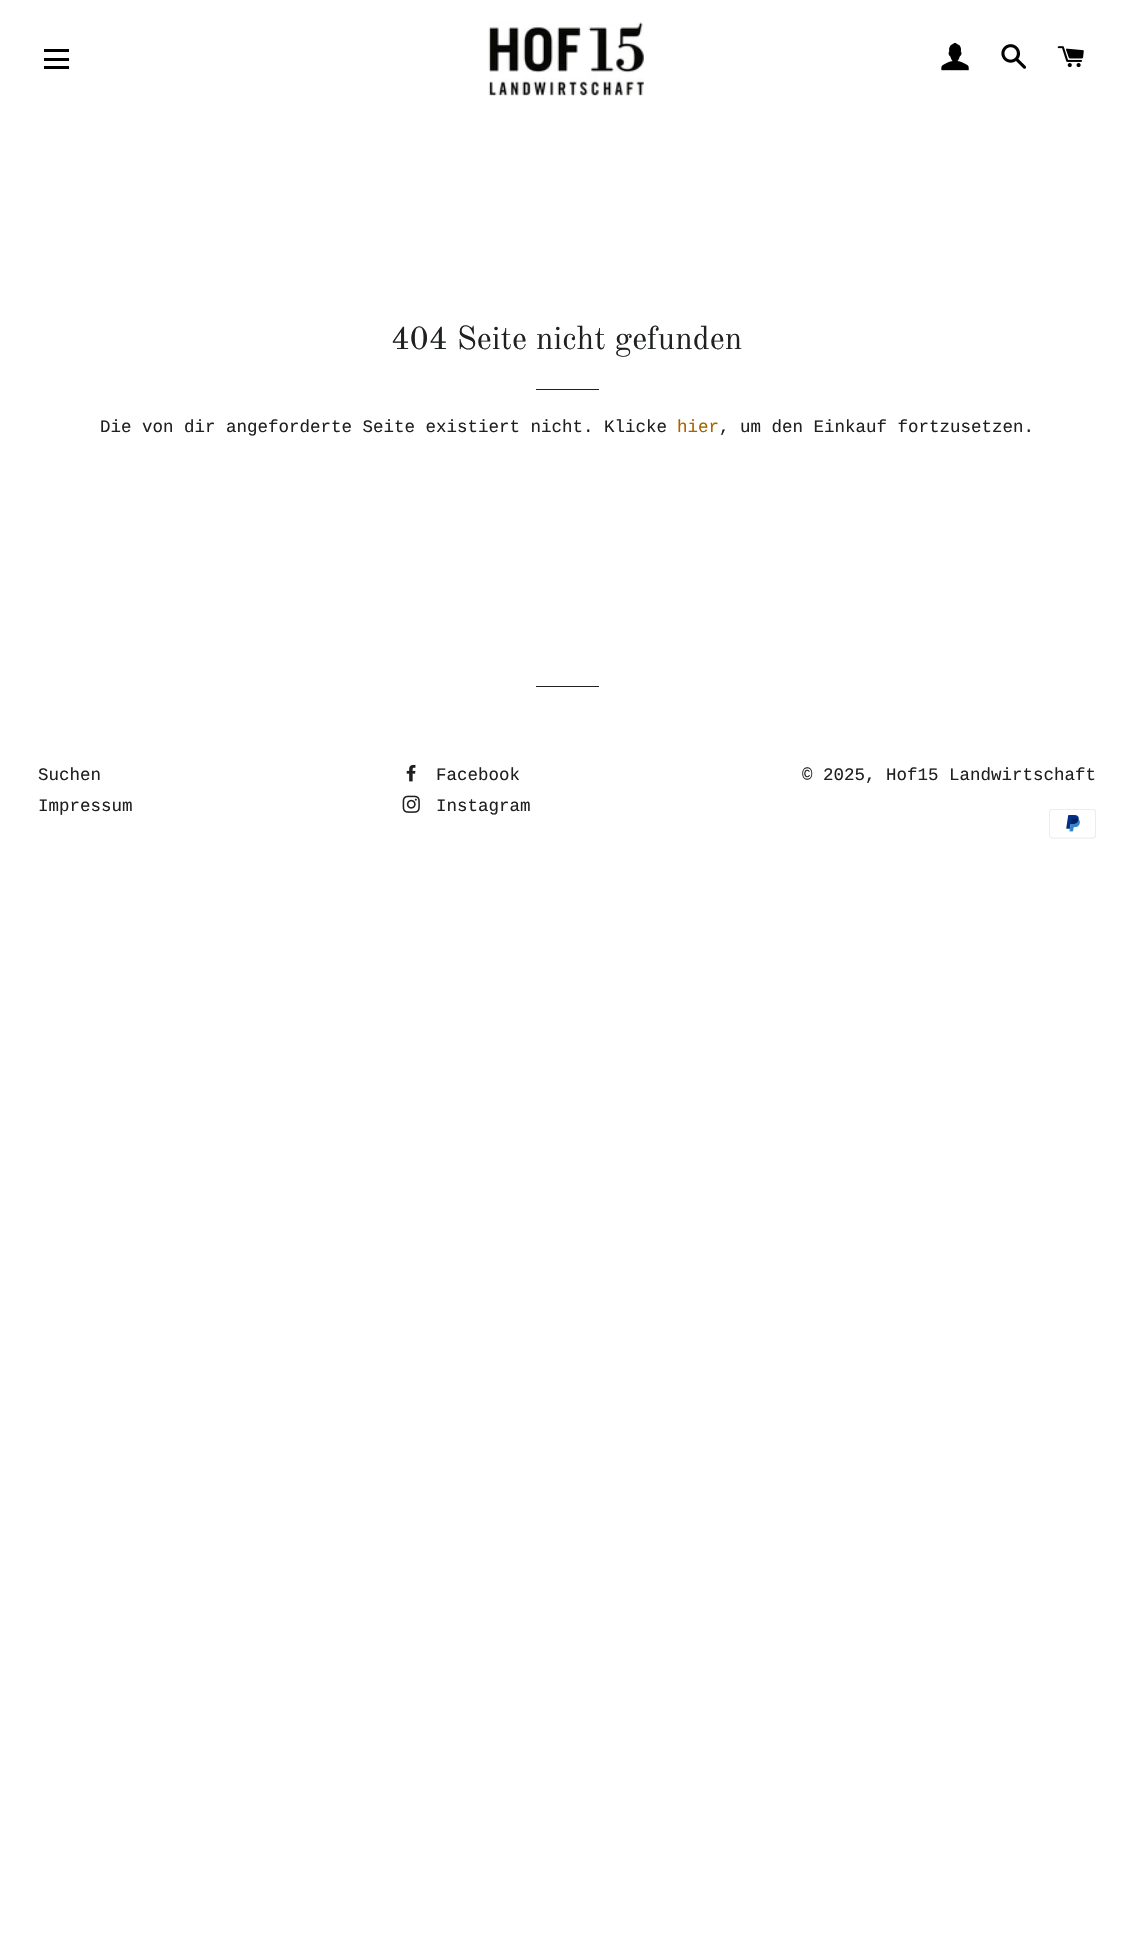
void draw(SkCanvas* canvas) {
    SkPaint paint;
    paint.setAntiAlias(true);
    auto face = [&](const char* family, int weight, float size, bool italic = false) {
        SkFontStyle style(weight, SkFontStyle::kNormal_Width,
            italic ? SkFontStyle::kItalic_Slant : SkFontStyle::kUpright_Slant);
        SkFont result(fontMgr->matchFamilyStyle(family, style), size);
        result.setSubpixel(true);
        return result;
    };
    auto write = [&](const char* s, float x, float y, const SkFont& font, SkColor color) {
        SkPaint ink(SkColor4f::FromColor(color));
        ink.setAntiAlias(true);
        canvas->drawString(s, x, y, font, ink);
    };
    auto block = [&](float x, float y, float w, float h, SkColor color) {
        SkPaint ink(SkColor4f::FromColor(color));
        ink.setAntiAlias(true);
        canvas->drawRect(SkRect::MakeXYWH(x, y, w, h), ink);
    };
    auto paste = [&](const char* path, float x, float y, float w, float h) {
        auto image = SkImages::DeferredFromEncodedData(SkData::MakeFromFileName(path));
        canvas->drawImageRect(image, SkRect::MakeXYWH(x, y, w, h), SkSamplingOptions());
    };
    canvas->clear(SK_ColorWHITE);
    block(44, 49, 25, 3, SK_ColorBLACK);
    block(44, 58, 25, 3, SK_ColorBLACK);
    block(44, 66, 25, 3, SK_ColorBLACK);
    paste("pic1.png", 488, 22, 156, 74);
    paste("pic2.png", 941, 42, 28, 29);
    paste("pic3.png", 1001, 44, 26, 25);
    paste("pic4.png", 1057, 46, 27, 22);
    auto kFont1 = face("Old Standard TT", 400, 32.5f);
    write("404 Seite nicht gefunden", 391, 349, kFont1, SkColorSetRGB(31, 32, 33));
    block(536, 389, 63, 1, SkColorSetRGB(31, 32, 33));
    auto kFont2 = face("Liberation Mono", 400, 17.5f);
    write("Die von dir angeforderte Seite existiert nicht. Klicke", 100, 432, kFont2, SkColorSetRGB(31, 32, 33));
    write("hier", 677, 432, kFont2, SkColorSetRGB(165, 102, 0));
    write(", um den Einkauf fortzusetzen.", 719, 432, kFont2, SkColorSetRGB(31, 32, 33));
    block(536, 686, 63, 1, SkColorSetRGB(31, 32, 33));
    write("Suchen", 38, 780, kFont2, SkColorSetRGB(31, 32, 33));
    write("Impressum", 38, 811, kFont2, SkColorSetRGB(31, 32, 33));
    paste("pic5.png", 406, 764, 10, 18);
    write("Facebook", 436, 780, kFont2, SkColorSetRGB(31, 32, 33));
    paste("pic6.png", 402, 795, 18, 18);
    write("Instagram", 436, 811, kFont2, SkColorSetRGB(31, 32, 33));
    write("© 2025, Hof15 Landwirtschaft", 802, 780, kFont2, SkColorSetRGB(31, 32, 33));
    paste("pic7.png", 1049, 809, 47, 30);
}
